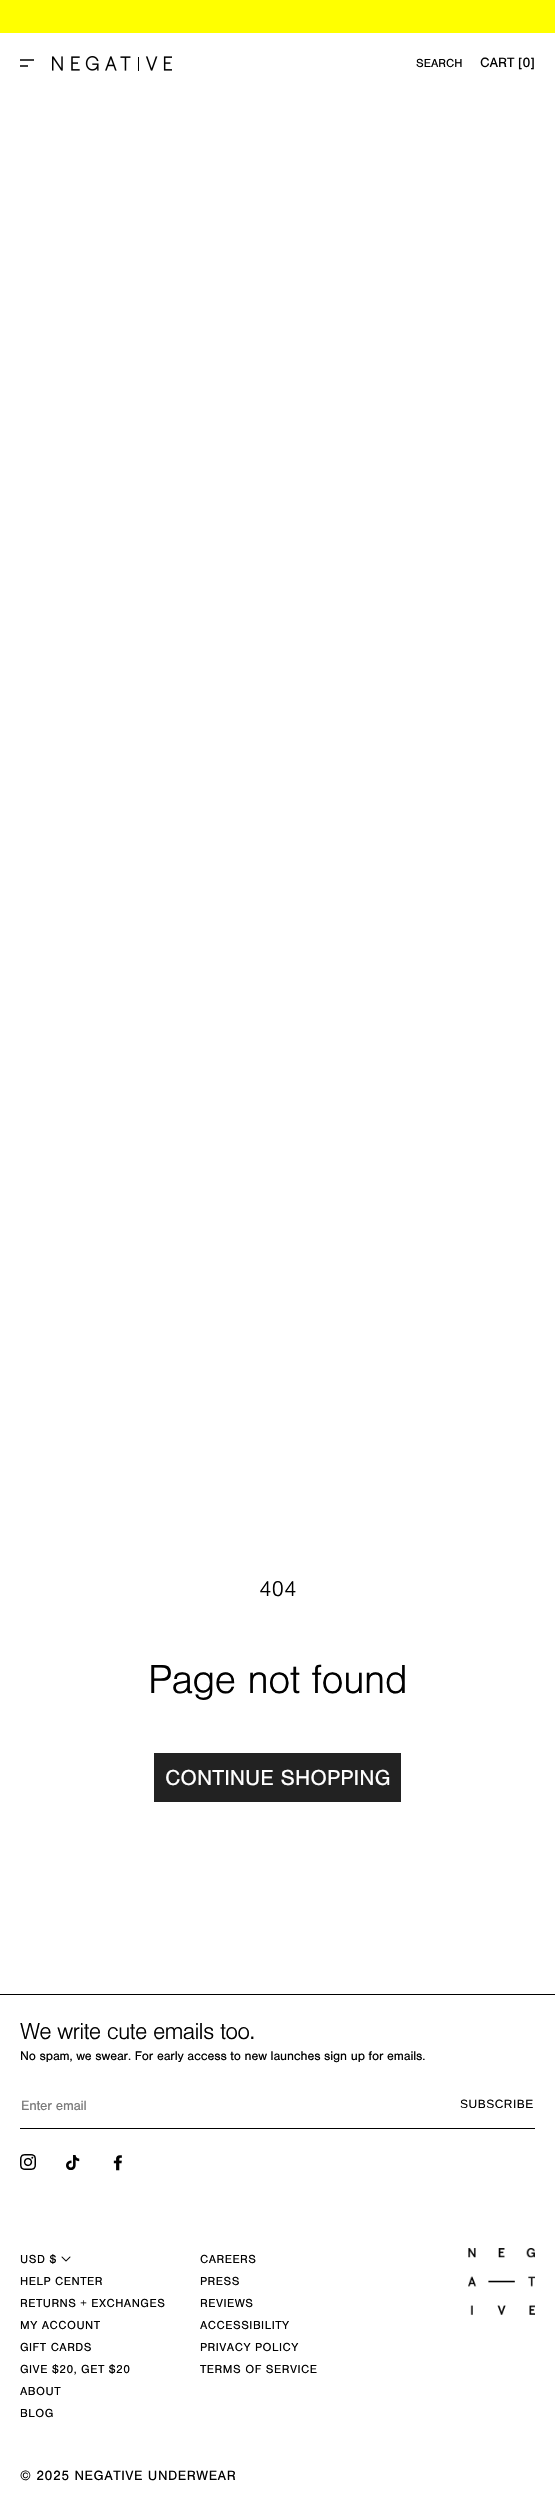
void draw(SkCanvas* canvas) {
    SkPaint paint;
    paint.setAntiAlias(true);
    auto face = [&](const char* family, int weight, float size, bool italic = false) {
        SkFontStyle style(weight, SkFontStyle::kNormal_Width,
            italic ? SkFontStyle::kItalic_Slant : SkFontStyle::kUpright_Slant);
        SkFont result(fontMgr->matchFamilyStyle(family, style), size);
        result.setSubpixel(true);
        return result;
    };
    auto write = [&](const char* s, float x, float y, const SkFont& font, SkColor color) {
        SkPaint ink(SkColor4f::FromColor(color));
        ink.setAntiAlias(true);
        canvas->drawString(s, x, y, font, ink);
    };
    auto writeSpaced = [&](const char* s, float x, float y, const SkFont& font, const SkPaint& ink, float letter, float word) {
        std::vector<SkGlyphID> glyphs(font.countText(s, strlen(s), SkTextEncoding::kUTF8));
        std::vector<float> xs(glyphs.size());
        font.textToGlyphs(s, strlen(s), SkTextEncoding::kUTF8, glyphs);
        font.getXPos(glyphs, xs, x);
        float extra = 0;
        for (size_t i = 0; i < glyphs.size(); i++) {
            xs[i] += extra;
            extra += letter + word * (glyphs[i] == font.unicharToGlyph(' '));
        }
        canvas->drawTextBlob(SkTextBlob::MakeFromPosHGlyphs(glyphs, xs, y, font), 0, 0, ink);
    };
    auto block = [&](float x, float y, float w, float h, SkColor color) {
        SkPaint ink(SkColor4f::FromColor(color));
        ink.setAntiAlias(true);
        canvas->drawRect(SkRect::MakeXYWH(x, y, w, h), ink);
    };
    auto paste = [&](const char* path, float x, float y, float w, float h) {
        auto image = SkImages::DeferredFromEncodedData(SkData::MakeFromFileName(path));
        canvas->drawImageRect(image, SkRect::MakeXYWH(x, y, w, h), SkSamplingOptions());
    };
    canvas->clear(SK_ColorWHITE);
    block(0, 0, 555, 33, SkColorSetRGB(255, 255, 0));
    block(20, 59, 14, 2, SkColorSetRGB(64, 64, 64));
    block(20, 65, 8, 2, SkColorSetRGB(64, 64, 64));
    paste("pic1.png", 52, 56, 120, 15);
    auto kFont1 = face("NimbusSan", 400, 12);
    write("SEARCH", 416, 67, kFont1, SK_ColorBLACK);
    auto kFont2 = face("NimbusSan", 400, 14);
    write("CART", 480, 67, kFont2, SK_ColorBLACK);
    write("[0]", 518, 67, kFont2, SK_ColorBLACK);
    auto kFont3 = face("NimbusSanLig", 400, 22.4f);
    write("404", 259, 1596, kFont3, SK_ColorBLACK);
    auto kFont4 = face("NimbusSanLig", 400, 42);
    paint.setColor(SK_ColorBLACK);
    writeSpaced("Page not found", 148, 1693, kFont4, paint, -0.8f, 0);
    block(154, 1753, 247, 49, SkColorSetRGB(34, 34, 34));
    auto kFont5 = face("NimbusSan", 400, 22.4f);
    write("CONTINUE SHOPPING", 165, 1785, kFont5, SK_ColorWHITE);
    block(0, 1994, 555, 1, SK_ColorBLACK);
    auto kFont6 = face("NimbusSanLig", 400, 24);
    writeSpaced("We write cute emails too.", 20, 2039, kFont6, paint, -0.75f, 0);
    auto kFont7 = face("NimbusSan", 400, 13);
    writeSpaced("No spam, we swear. For early access to new launches sign up for emails.", 20, 2060, kFont7, paint, -0.13f, 0);
    block(20, 2128, 515, 1, SK_ColorBLACK);
    paint.setColor(SkColorSetRGB(122, 122, 122));
    writeSpaced("Enter email", 21, 2110, kFont2, paint, -0.25f, 0);
    auto kFont8 = face("Liberation Sans", 400, 12);
    paint.setColor(SK_ColorBLACK);
    writeSpaced("SUBSCRIBE", 460, 2108, kFont8, paint, 0.5f, 0);
    paste("pic2.png", 20, 2154, 16, 16);
    paste("pic3.png", 66, 2155, 14, 15);
    paste("pic4.png", 113, 2155, 9, 16);
    writeSpaced("USD $", 20, 2263, kFont1, paint, 0.5f, 0);
    paste("pic5.png", 61, 2256, 10, 6);
    writeSpaced("HELP CENTER", 20, 2285, kFont1, paint, 0.5f, 0);
    writeSpaced("RETURNS + EXCHANGES", 20, 2307, kFont1, paint, 0.5f, 0);
    writeSpaced("MY ACCOUNT", 20, 2329, kFont1, paint, 0.5f, 0);
    writeSpaced("GIFT CARDS", 20, 2351, kFont1, paint, 0.5f, 0);
    writeSpaced("GIVE $20, GET $20", 20, 2373, kFont1, paint, 0.5f, 0);
    writeSpaced("ABOUT", 20, 2395, kFont1, paint, 0.5f, 0);
    writeSpaced("BLOG", 20, 2417, kFont1, paint, 0.5f, 0);
    writeSpaced("CAREERS", 200, 2263, kFont1, paint, 0.5f, 0);
    writeSpaced("PRESS", 200, 2285, kFont1, paint, 0.5f, 0);
    writeSpaced("REVIEWS", 200, 2307, kFont1, paint, 0.5f, 0);
    writeSpaced("ACCESSIBILITY", 200, 2329, kFont1, paint, 0.5f, 0);
    writeSpaced("PRIVACY POLICY", 200, 2351, kFont1, paint, 0.5f, 0);
    writeSpaced("TERMS OF SERVICE", 200, 2373, kFont1, paint, 0.5f, 0);
    paste("pic6.png", 468, 2248, 67, 67);
    writeSpaced("© 2025 NEGATIVE UNDERWEAR", 20, 2480, kFont2, paint, 0.55f, 0);
}
